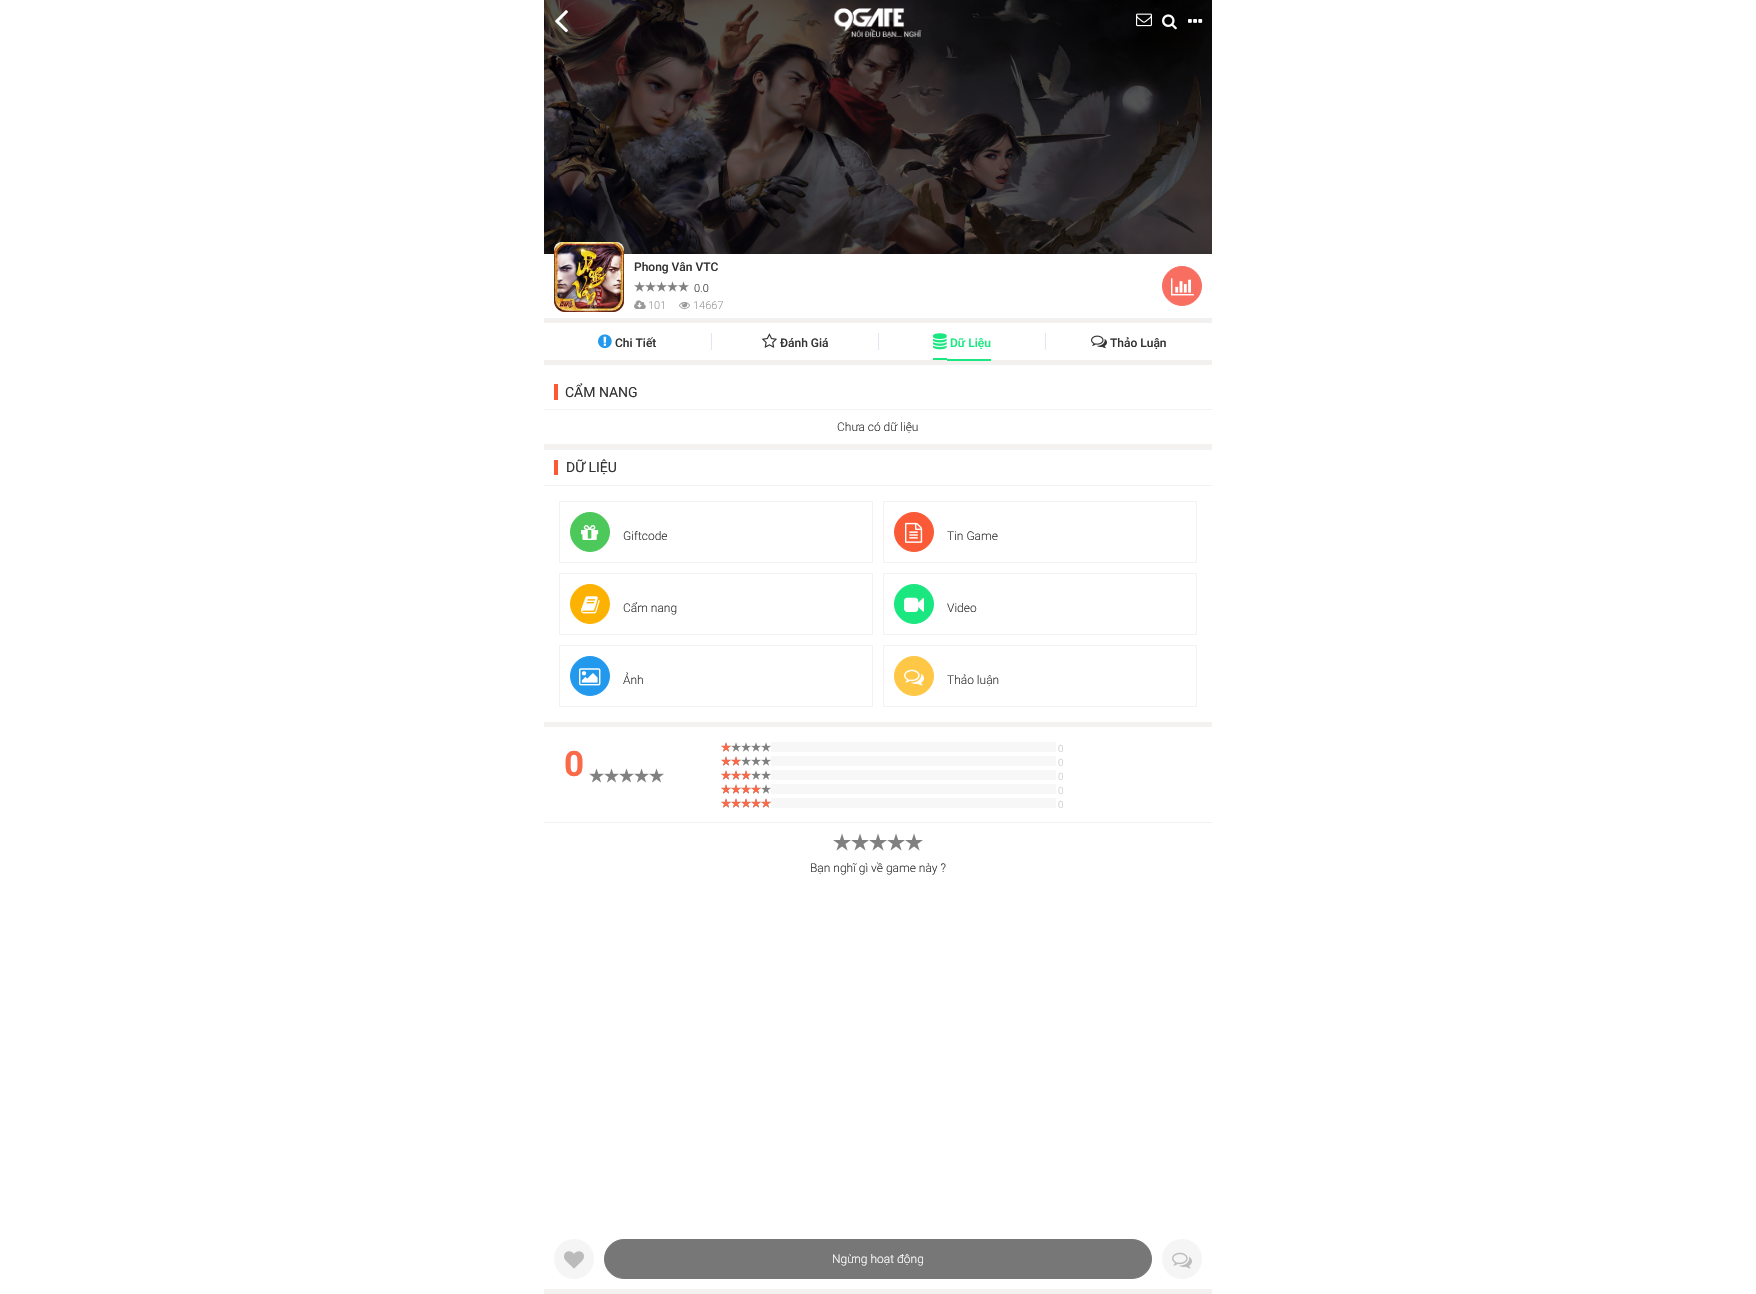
void draw(SkCanvas* canvas) {
    SkPaint paint;
    paint.setAntiAlias(true);
    auto face = [&](const char* family, int weight, float size, bool italic = false) {
        SkFontStyle style(weight, SkFontStyle::kNormal_Width,
            italic ? SkFontStyle::kItalic_Slant : SkFontStyle::kUpright_Slant);
        SkFont result(fontMgr->matchFamilyStyle(family, style), size);
        result.setSubpixel(true);
        return result;
    };
    auto write = [&](const char* s, float x, float y, const SkFont& font, SkColor color) {
        SkPaint ink(SkColor4f::FromColor(color));
        ink.setAntiAlias(true);
        canvas->drawString(s, x, y, font, ink);
    };
    auto block = [&](float x, float y, float w, float h, SkColor color) {
        SkPaint ink(SkColor4f::FromColor(color));
        ink.setAntiAlias(true);
        canvas->drawRect(SkRect::MakeXYWH(x, y, w, h), ink);
    };
    auto paste = [&](const char* path, float x, float y, float w, float h) {
        auto image = SkImages::DeferredFromEncodedData(SkData::MakeFromFileName(path));
        canvas->drawImageRect(image, SkRect::MakeXYWH(x, y, w, h), SkSamplingOptions());
    };
    canvas->clear(SK_ColorWHITE);
    paste("pic1.png", 544, 0, 668, 254);
    paste("pic2.png", 555, 10, 13, 23);
    paste("pic3.png", 834, 8, 88, 30);
    paste("pic4.png", 1136, 13, 16, 14);
    paste("pic5.png", 1162, 14, 15, 16);
    paste("pic6.png", 1188, 19, 15, 4);
    block(544, 318, 668, 5, SkColorSetRGB(243, 241, 240));
    paste("pic7.png", 554, 242, 70, 70);
    auto kFont1 = face("Roboto", 500, 12);
    write("Phong Vân VTC", 634, 271, kFont1, SkColorSetRGB(51, 51, 51));
    paste("pic8.png", 634, 281, 11, 11);
    paste("pic8.png", 645, 281, 11, 11);
    paste("pic8.png", 656, 281, 11, 11);
    paste("pic8.png", 667, 281, 11, 11);
    paste("pic8.png", 678, 281, 11, 11);
    auto kFont2 = face("Roboto", 300, 11);
    write("0.0", 694, 292, kFont2, SkColorSetRGB(51, 51, 51));
    paste("pic9.png", 634, 300, 12, 9);
    write("101", 648, 309, kFont2, SkColorSetRGB(153, 153, 153));
    paste("pic10.png", 679, 302, 11, 7);
    write("14667", 693, 309, kFont2, SkColorSetRGB(153, 153, 153));
    paint.setColor(SkColorSetRGB(248, 111, 98));
    canvas->drawCircle(1182, 286, 19.5f, paint);
    paint.setStyle(SkPaint::kStroke_Style);
    paint.setStrokeWidth(1);
    canvas->drawCircle(1182, 286, 19.5f, paint);
    paste("pic11.png", 1171, 278, 23, 18);
    block(544, 1289, 668, 5, SkColorSetRGB(244, 242, 240));
    paint.setStyle(SkPaint::kFill_Style);
    paint.setColor(SkColorSetRGB(245, 245, 245));
    canvas->drawCircle(574, 1259, 20, paint);
    paste("pic12.png", 564, 1251, 20, 18);
    paint.setColor(SkColorSetRGB(119, 119, 119));
    canvas->drawRoundRect(SkRect::MakeXYWH(604.5f, 1239.5f, 547, 39), 19.5f, 19.5f, paint);
    paint.setStyle(SkPaint::kStroke_Style);
    canvas->drawRoundRect(SkRect::MakeXYWH(604.5f, 1239.5f, 547, 39), 19.5f, 19.5f, paint);
    auto kFont3 = face("Roboto", 300, 12);
    write("Ngừng hoạt động", 832, 1263, kFont3, SK_ColorWHITE);
    paint.setStyle(SkPaint::kFill_Style);
    paint.setColor(SkColorSetRGB(245, 245, 245));
    canvas->drawCircle(1182, 1259, 20, paint);
    paste("pic13.png", 1172, 1252, 20, 17);
    block(544, 360, 668, 5, SkColorSetRGB(243, 241, 240));
    paste("pic14.png", 598, 334, 14, 15);
    write("Chi Tiết", 615, 347, kFont1, SkColorSetRGB(51, 51, 51));
    block(711, 333, 1, 17, SkColorSetRGB(233, 226, 240));
    paste("pic15.png", 762, 333, 15, 15);
    write("Đánh Giá", 780, 347, kFont1, SkColorSetRGB(51, 51, 51));
    block(878, 333, 1, 17, SkColorSetRGB(233, 226, 240));
    block(933, 358, 14, 2, SkColorSetRGB(26, 231, 128));
    block(947, 359, 44, 2, SkColorSetRGB(26, 231, 128));
    paste("pic16.png", 933, 333, 14, 17);
    write("Dữ Liệu", 950, 347, kFont1, SkColorSetRGB(26, 231, 128));
    block(1045, 333, 1, 17, SkColorSetRGB(233, 226, 240));
    paste("pic17.png", 1091, 335, 16, 14);
    write("Thảo Luận", 1110, 347, kFont1, SkColorSetRGB(51, 51, 51));
    block(544, 444, 668, 6, SkColorSetRGB(244, 242, 240));
    block(544, 409, 668, 1, SkColorSetRGB(244, 242, 240));
    auto kFont4 = face("Roboto", 400, 14);
    write("CẨM NANG", 565, 397, kFont4, SkColorSetRGB(51, 51, 51));
    block(554, 384, 4, 16, SkColorSetRGB(250, 90, 54));
    write("Chưa có dữ liệu", 837, 431, kFont3, SkColorSetRGB(51, 51, 51));
    block(544, 722, 668, 5, SkColorSetRGB(244, 242, 240));
    block(544, 485, 668, 1, SkColorSetRGB(244, 242, 240));
    block(554, 460, 4, 15, SkColorSetRGB(250, 90, 54));
    write("DỮ LIỆU", 566, 472, kFont4, SkColorSetRGB(51, 51, 51));
    paint.setStyle(SkPaint::kStroke_Style);
    paint.setColor(SkColorSetRGB(244, 242, 240));
    canvas->drawRect(SkRect::MakeXYWH(559.5f, 501.5f, 313, 61), paint);
    paint.setStyle(SkPaint::kFill_Style);
    paint.setColor(SkColorSetRGB(77, 200, 90));
    canvas->drawCircle(590, 532, 19.5f, paint);
    paint.setStyle(SkPaint::kStroke_Style);
    canvas->drawCircle(590, 532, 19.5f, paint);
    paste("pic18.png", 581, 525, 18, 15);
    write("Giftcode", 623, 540, kFont3, SkColorSetRGB(51, 51, 51));
    paint.setColor(SkColorSetRGB(244, 242, 240));
    canvas->drawRect(SkRect::MakeXYWH(883.5f, 501.5f, 313, 61), paint);
    paint.setStyle(SkPaint::kFill_Style);
    paint.setColor(SkColorSetRGB(250, 90, 54));
    canvas->drawCircle(914, 532, 19.5f, paint);
    paint.setStyle(SkPaint::kStroke_Style);
    canvas->drawCircle(914, 532, 19.5f, paint);
    paste("pic19.png", 905, 522, 18, 21);
    write("Tin Game", 947, 540, kFont3, SkColorSetRGB(51, 51, 51));
    paint.setColor(SkColorSetRGB(244, 242, 240));
    canvas->drawRect(SkRect::MakeXYWH(559.5f, 573.5f, 313, 61), paint);
    paint.setStyle(SkPaint::kFill_Style);
    paint.setColor(SkColorSetRGB(253, 178, 1));
    canvas->drawCircle(590, 604, 19.5f, paint);
    paint.setStyle(SkPaint::kStroke_Style);
    canvas->drawCircle(590, 604, 19.5f, paint);
    paste("pic20.png", 581, 596, 19, 18);
    write("Cẩm nang", 623, 612, kFont3, SkColorSetRGB(51, 51, 51));
    paint.setColor(SkColorSetRGB(244, 242, 240));
    canvas->drawRect(SkRect::MakeXYWH(883.5f, 573.5f, 313, 61), paint);
    paint.setStyle(SkPaint::kFill_Style);
    paint.setColor(SkColorSetRGB(26, 231, 128));
    canvas->drawCircle(914, 604, 19.5f, paint);
    paint.setStyle(SkPaint::kStroke_Style);
    canvas->drawCircle(914, 604, 19.5f, paint);
    paste("pic21.png", 904, 597, 20, 15);
    write("Video", 947, 612, kFont3, SkColorSetRGB(51, 51, 51));
    paint.setColor(SkColorSetRGB(244, 242, 240));
    canvas->drawRect(SkRect::MakeXYWH(559.5f, 645.5f, 313, 61), paint);
    paint.setStyle(SkPaint::kFill_Style);
    paint.setColor(SkColorSetRGB(34, 153, 237));
    canvas->drawCircle(590, 676, 19.5f, paint);
    paint.setStyle(SkPaint::kStroke_Style);
    canvas->drawCircle(590, 676, 19.5f, paint);
    paste("pic22.png", 579, 668, 22, 18);
    write("Ảnh", 623, 684, kFont3, SkColorSetRGB(51, 51, 51));
    paint.setColor(SkColorSetRGB(244, 242, 240));
    canvas->drawRect(SkRect::MakeXYWH(883.5f, 645.5f, 313, 61), paint);
    paint.setStyle(SkPaint::kFill_Style);
    paint.setColor(SkColorSetRGB(254, 199, 70));
    canvas->drawCircle(914, 676, 19.5f, paint);
    paint.setStyle(SkPaint::kStroke_Style);
    canvas->drawCircle(914, 676, 19.5f, paint);
    paste("pic23.png", 904, 669, 20, 17);
    write("Thảo luận", 947, 684, kFont3, SkColorSetRGB(51, 51, 51));
    auto kFont5 = face("Roboto", 700, 35);
    write("0", 564, 776, kFont5, SkColorSetRGB(250, 106, 73));
    paste("pic24.png", 589, 768, 15, 15);
    paste("pic24.png", 604, 768, 15, 15);
    paste("pic24.png", 619, 768, 15, 15);
    paste("pic24.png", 634, 768, 15, 15);
    paste("pic24.png", 649, 768, 15, 15);
    paste("pic25.png", 721, 742, 10, 10);
    paste("pic25.png", 731, 742, 10, 10);
    paste("pic25.png", 741, 742, 10, 10);
    paste("pic25.png", 751, 742, 10, 10);
    paste("pic25.png", 761, 742, 10, 10);
    paste("pic26.png", 721, 742, 10, 10);
    block(771, 742, 285, 10, SkColorSetRGB(247, 247, 247));
    auto kFont6 = face("Roboto", 300, 10);
    write("0", 1058, 752, kFont6, SkColorSetRGB(204, 204, 204));
    paste("pic25.png", 721, 756, 10, 10);
    paste("pic25.png", 731, 756, 10, 10);
    paste("pic25.png", 741, 756, 10, 10);
    paste("pic25.png", 751, 756, 10, 10);
    paste("pic25.png", 761, 756, 10, 10);
    paste("pic26.png", 721, 756, 10, 10);
    paste("pic26.png", 731, 756, 10, 10);
    block(771, 756, 285, 10, SkColorSetRGB(247, 247, 247));
    write("0", 1058, 766, kFont6, SkColorSetRGB(204, 204, 204));
    paste("pic25.png", 721, 770, 10, 10);
    paste("pic25.png", 731, 770, 10, 10);
    paste("pic25.png", 741, 770, 10, 10);
    paste("pic25.png", 751, 770, 10, 10);
    paste("pic25.png", 761, 770, 10, 10);
    paste("pic26.png", 721, 770, 10, 10);
    paste("pic26.png", 731, 770, 10, 10);
    paste("pic26.png", 741, 770, 10, 10);
    block(771, 770, 285, 10, SkColorSetRGB(247, 247, 247));
    write("0", 1058, 780, kFont6, SkColorSetRGB(204, 204, 204));
    paste("pic25.png", 721, 784, 10, 10);
    paste("pic25.png", 731, 784, 10, 10);
    paste("pic25.png", 741, 784, 10, 10);
    paste("pic25.png", 751, 784, 10, 10);
    paste("pic25.png", 761, 784, 10, 10);
    paste("pic26.png", 721, 784, 10, 10);
    paste("pic26.png", 731, 784, 10, 10);
    paste("pic26.png", 741, 784, 10, 10);
    paste("pic26.png", 751, 784, 10, 10);
    block(771, 784, 285, 10, SkColorSetRGB(247, 247, 247));
    write("0", 1058, 794, kFont6, SkColorSetRGB(204, 204, 204));
    paste("pic25.png", 721, 798, 10, 10);
    paste("pic25.png", 731, 798, 10, 10);
    paste("pic25.png", 741, 798, 10, 10);
    paste("pic25.png", 751, 798, 10, 10);
    paste("pic25.png", 761, 798, 10, 10);
    paste("pic26.png", 721, 798, 10, 10);
    paste("pic26.png", 731, 798, 10, 10);
    paste("pic26.png", 741, 798, 10, 10);
    paste("pic26.png", 751, 798, 10, 10);
    paste("pic26.png", 761, 798, 10, 10);
    block(771, 798, 285, 10, SkColorSetRGB(247, 247, 247));
    write("0", 1058, 808, kFont6, SkColorSetRGB(204, 204, 204));
    block(544, 822, 668, 1, SkColorSetRGB(243, 241, 240));
    paste("pic27.png", 833, 833, 18, 18);
    paste("pic27.png", 851, 833, 18, 18);
    paste("pic27.png", 869, 833, 18, 18);
    paste("pic27.png", 887, 833, 18, 18);
    paste("pic27.png", 905, 833, 18, 18);
    write("Bạn nghĩ gì về game này ?", 810, 872, kFont3, SkColorSetRGB(51, 51, 51));
}
